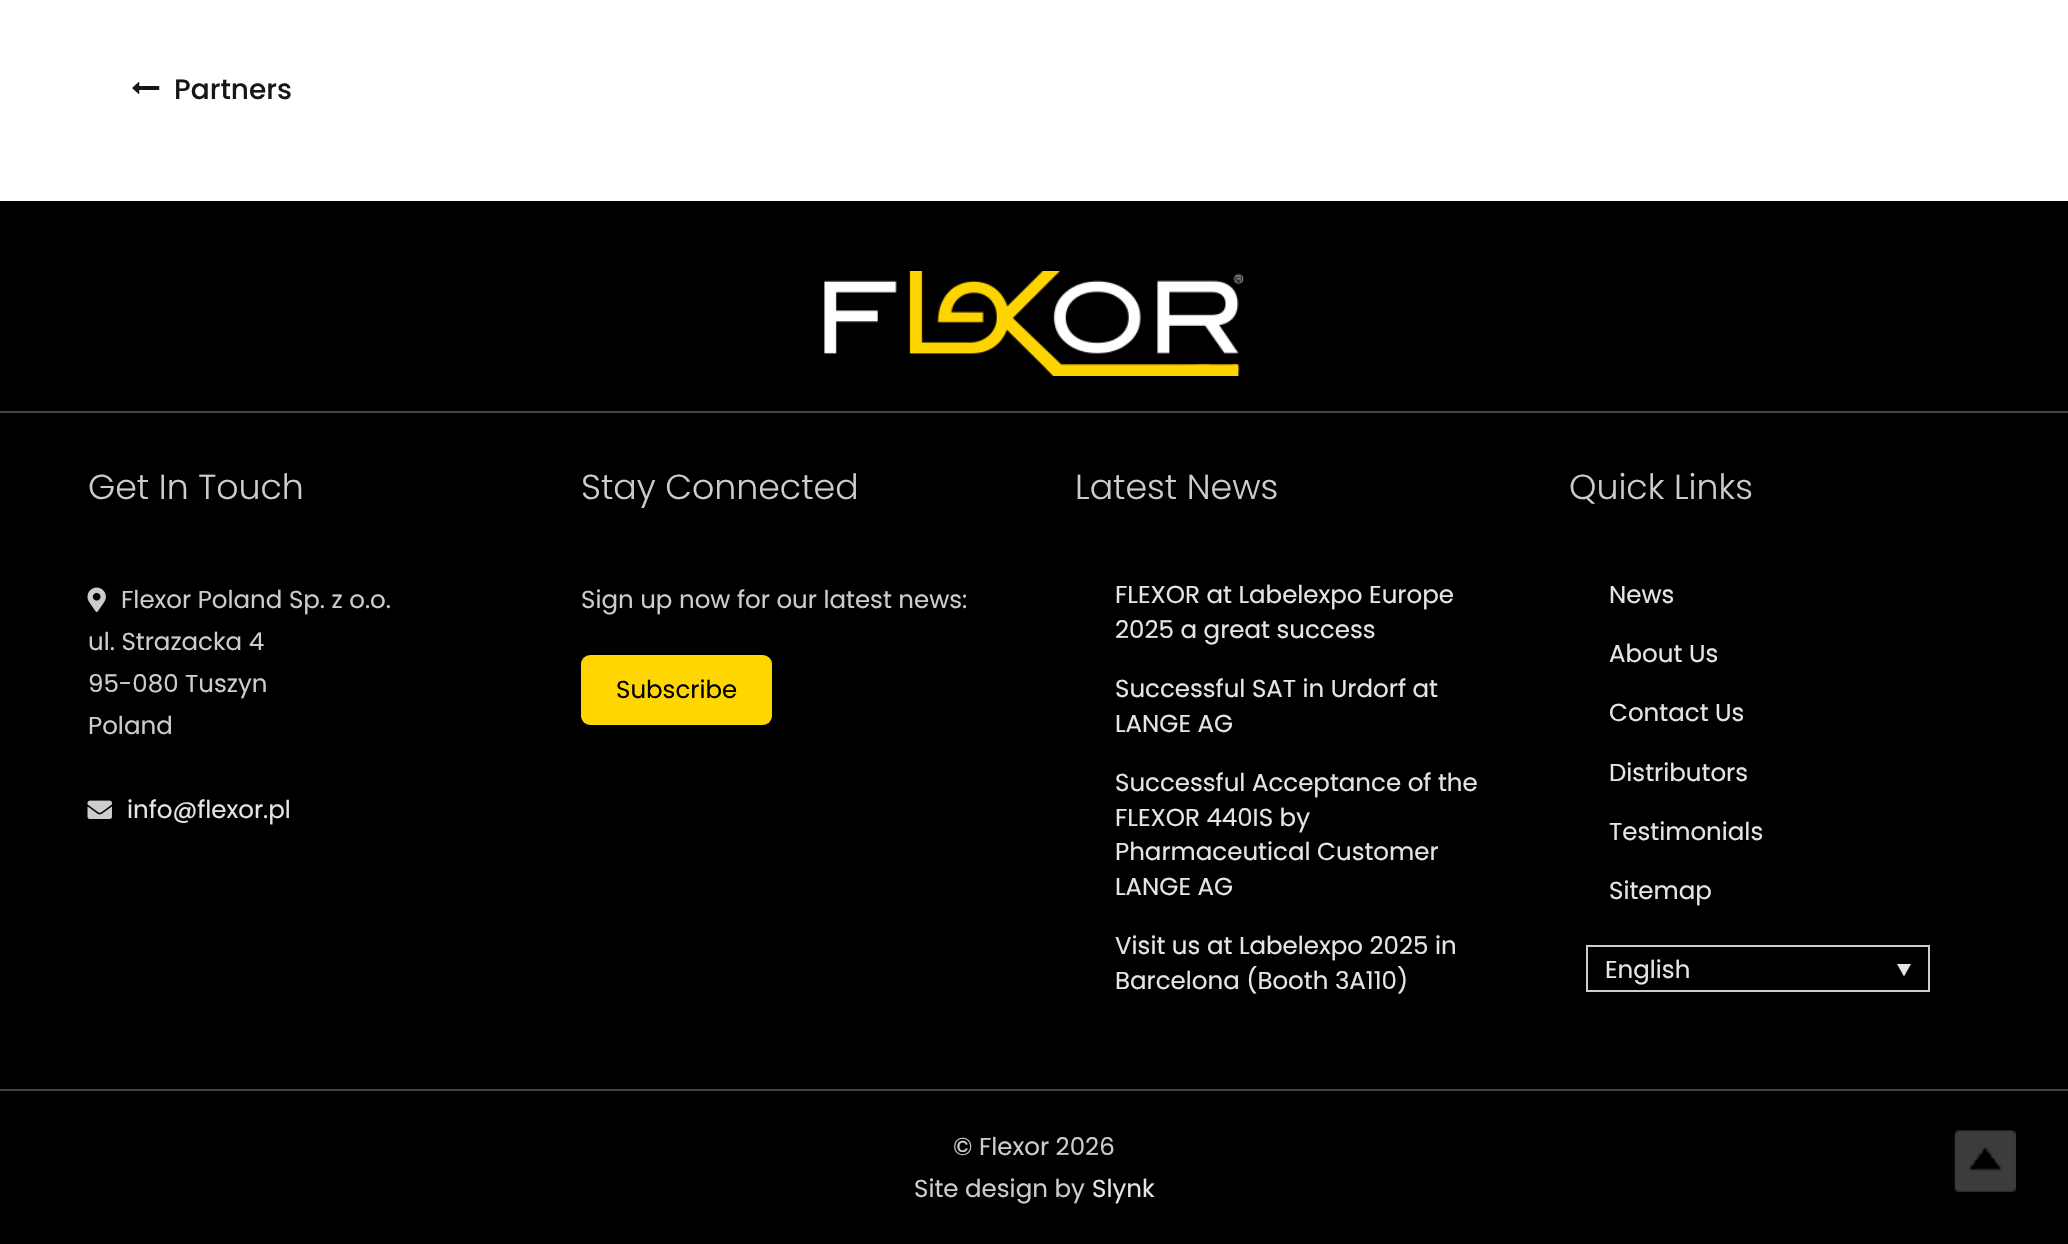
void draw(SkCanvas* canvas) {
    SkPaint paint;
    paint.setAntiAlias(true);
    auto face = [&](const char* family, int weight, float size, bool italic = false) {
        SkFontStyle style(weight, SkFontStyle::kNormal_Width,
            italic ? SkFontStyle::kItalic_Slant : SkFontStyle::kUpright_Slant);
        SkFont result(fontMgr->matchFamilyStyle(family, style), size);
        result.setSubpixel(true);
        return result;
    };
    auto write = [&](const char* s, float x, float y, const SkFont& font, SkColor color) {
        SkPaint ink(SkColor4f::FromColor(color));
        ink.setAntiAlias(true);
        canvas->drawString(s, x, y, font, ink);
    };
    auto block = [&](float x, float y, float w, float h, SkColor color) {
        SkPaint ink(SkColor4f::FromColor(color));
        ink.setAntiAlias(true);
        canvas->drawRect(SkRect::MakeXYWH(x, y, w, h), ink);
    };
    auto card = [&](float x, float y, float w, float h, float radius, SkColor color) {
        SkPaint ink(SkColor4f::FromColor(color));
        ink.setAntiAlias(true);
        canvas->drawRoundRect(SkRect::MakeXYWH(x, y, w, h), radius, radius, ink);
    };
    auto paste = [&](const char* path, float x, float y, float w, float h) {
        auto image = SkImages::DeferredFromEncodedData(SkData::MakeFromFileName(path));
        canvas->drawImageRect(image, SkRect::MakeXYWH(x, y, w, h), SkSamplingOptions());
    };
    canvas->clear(SK_ColorWHITE);
    paste("pic1.png", 132, 82, 28, 12);
    auto kFont1 = face("Poppins", 500, 28);
    write("Partners", 174, 99, kFont1, SkColorSetRGB(23, 23, 23));
    block(0, 201, 2068, 1043, SK_ColorBLACK);
    block(0, 411, 2068, 2, SkColorSetRGB(66, 66, 66));
    paste("pic2.png", 824, 271, 420, 105);
    auto kFont2 = face("Poppins", 300, 34.75f);
    write("Get In Touch", 88, 499, kFont2, SkColorSetRGB(204, 204, 204));
    paste("pic3.png", 87, 587, 19, 25);
    auto kFont3 = face("Poppins", 400, 24.5f);
    write("Flexor Poland Sp. z o.o.", 121, 608, kFont3, SkColorSetRGB(204, 204, 204));
    write("ul. Strazacka 4", 88, 650, kFont3, SkColorSetRGB(204, 204, 204));
    write("95-080 Tuszyn", 88, 692, kFont3, SkColorSetRGB(204, 204, 204));
    write("Poland", 88, 734, kFont3, SkColorSetRGB(204, 204, 204));
    paste("pic4.png", 87, 800, 25, 19);
    write("info@flexor.pl", 127, 818, kFont3, SkColorSetRGB(229, 229, 229));
    write("Stay Connected", 581, 499, kFont2, SkColorSetRGB(204, 204, 204));
    write("Sign up now for our latest news:", 581, 608, kFont3, SkColorSetRGB(204, 204, 204));
    card(581, 655, 191, 70, 9, SkColorSetRGB(255, 214, 0));
    write("Subscribe", 616, 698, kFont3, SK_ColorBLACK);
    write("Latest News", 1075, 499, kFont2, SkColorSetRGB(204, 204, 204));
    write("FLEXOR at Labelexpo Europe", 1115, 603, kFont3, SkColorSetRGB(229, 229, 229));
    write("2025 a great success", 1115, 638, kFont3, SkColorSetRGB(229, 229, 229));
    write("Successful SAT in Urdorf at", 1115, 697, kFont3, SkColorSetRGB(229, 229, 229));
    write("LANGE AG", 1115, 732, kFont3, SkColorSetRGB(229, 229, 229));
    write("Successful Acceptance of the", 1115, 791, kFont3, SkColorSetRGB(229, 229, 229));
    write("FLEXOR 440IS by", 1115, 826, kFont3, SkColorSetRGB(229, 229, 229));
    write("Pharmaceutical Customer", 1115, 860, kFont3, SkColorSetRGB(229, 229, 229));
    write("LANGE AG", 1115, 895, kFont3, SkColorSetRGB(229, 229, 229));
    write("Visit us at Labelexpo 2025 in", 1115, 954, kFont3, SkColorSetRGB(229, 229, 229));
    write("Barcelona (Booth 3A110)", 1115, 989, kFont3, SkColorSetRGB(229, 229, 229));
    write("Quick Links", 1569, 499, kFont2, SkColorSetRGB(204, 204, 204));
    write("News", 1609, 603, kFont3, SkColorSetRGB(229, 229, 229));
    write("About Us", 1609, 662, kFont3, SkColorSetRGB(229, 229, 229));
    write("Contact Us", 1609, 721, kFont3, SkColorSetRGB(229, 229, 229));
    write("Distributors", 1609, 781, kFont3, SkColorSetRGB(229, 229, 229));
    write("Testimonials", 1609, 840, kFont3, SkColorSetRGB(229, 229, 229));
    write("Sitemap", 1609, 899, kFont3, SkColorSetRGB(229, 229, 229));
    paint.setStyle(SkPaint::kStroke_Style);
    paint.setStrokeWidth(2);
    paint.setColor(SkColorSetRGB(205, 205, 205));
    canvas->drawRect(SkRect::MakeXYWH(1587, 946, 342, 45), paint);
    write("English", 1605, 978, kFont3, SkColorSetRGB(229, 229, 229));
    paint.setStyle(SkPaint::kFill_Style);
    paint.setColor(SkColorSetRGB(229, 229, 229));
    canvas->drawPath(SkPathBuilder().moveTo(1897, 964).lineTo(1911, 964).lineTo(1904, 976.5f).close().detach(), paint);
    block(0, 1089, 2068, 2, SkColorSetRGB(66, 66, 66));
    write("© Flexor 2026", 953, 1155, kFont3, SkColorSetRGB(204, 204, 204));
    write("Site design by", 914, 1197, kFont3, SkColorSetRGB(204, 204, 204));
    write("Slynk", 1092, 1197, kFont3, SkColorSetRGB(229, 229, 229));
    paste("pic5.png", 1954, 1130, 62, 62);
}
